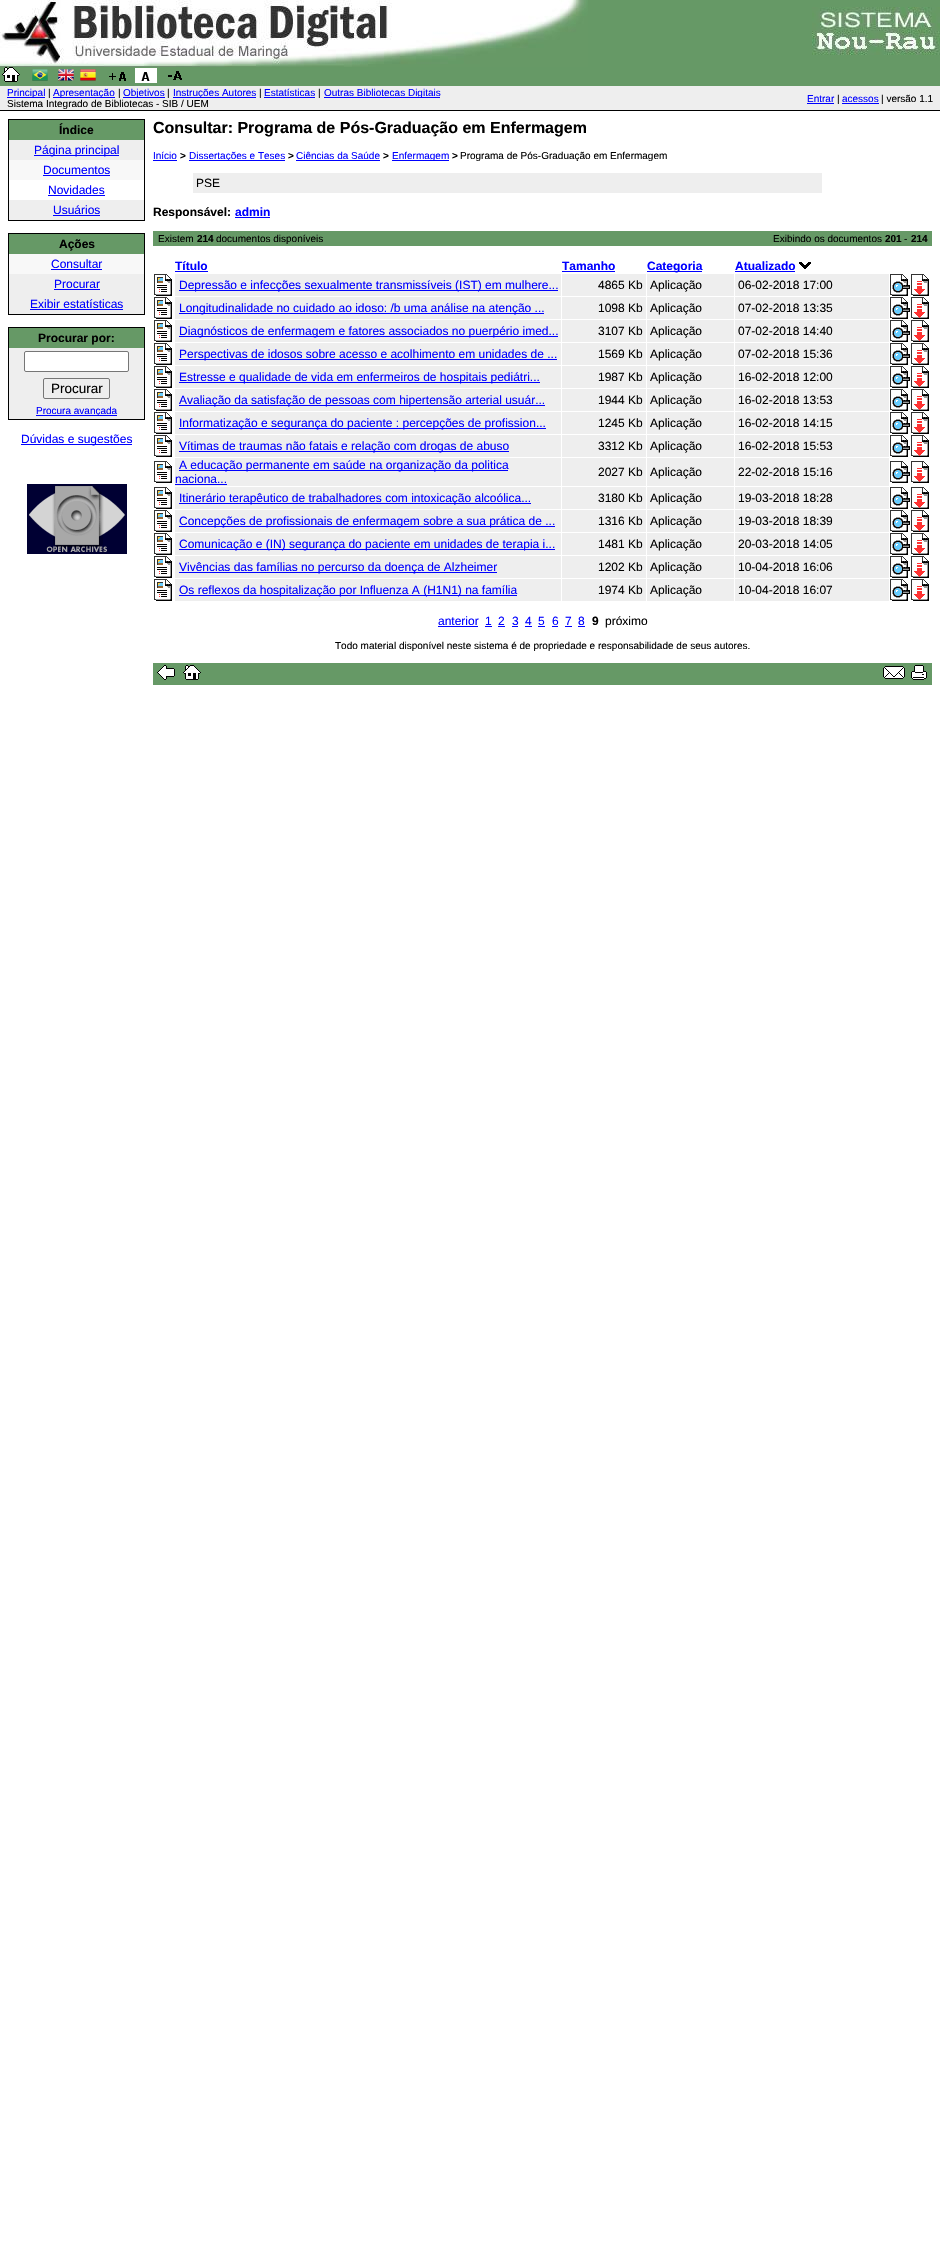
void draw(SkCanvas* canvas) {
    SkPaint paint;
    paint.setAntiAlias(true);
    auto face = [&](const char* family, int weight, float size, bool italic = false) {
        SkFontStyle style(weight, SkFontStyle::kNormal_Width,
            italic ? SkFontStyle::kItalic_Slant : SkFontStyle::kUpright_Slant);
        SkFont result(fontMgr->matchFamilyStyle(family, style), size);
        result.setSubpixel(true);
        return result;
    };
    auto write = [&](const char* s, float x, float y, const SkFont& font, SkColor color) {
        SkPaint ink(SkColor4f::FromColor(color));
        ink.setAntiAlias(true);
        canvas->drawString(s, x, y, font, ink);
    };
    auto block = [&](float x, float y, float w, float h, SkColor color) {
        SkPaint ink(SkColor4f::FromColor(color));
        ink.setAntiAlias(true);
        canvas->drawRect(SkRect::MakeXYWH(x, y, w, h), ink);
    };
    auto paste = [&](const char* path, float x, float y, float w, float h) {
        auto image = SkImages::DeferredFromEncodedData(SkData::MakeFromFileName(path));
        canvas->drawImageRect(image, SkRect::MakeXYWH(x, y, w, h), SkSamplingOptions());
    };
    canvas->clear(SK_ColorWHITE);
    block(588, 0, 352, 67, SkColorSetRGB(102, 153, 102));
    paste("pic1.png", 0, 0, 588, 67);
    paste("pic2.png", 812, 7, 128, 48);
    block(0, 67, 940, 19, SkColorSetRGB(102, 153, 102));
    paste("pic3.png", 2, 67, 18, 15);
    paste("pic4.png", 32, 69, 16, 12);
    paste("pic5.png", 58, 69, 16, 12);
    paste("pic6.png", 80, 69, 16, 12);
    paste("pic7.png", 109, 72, 17, 9);
    paste("pic8.png", 135, 68, 22, 15);
    paste("pic9.png", 168, 71, 14, 9);
    block(0, 86, 940, 24, SkColorSetRGB(238, 238, 238));
    block(7, 97, 38, 1, SkColorSetRGB(0, 0, 255));
    auto kFont1 = face("Liberation Sans", 400, 10);
    write("Principal", 7, 96, kFont1, SkColorSetRGB(0, 0, 255));
    write("|", 48, 96, kFont1, SK_ColorBLACK);
    block(53, 97, 62, 1, SkColorSetRGB(0, 0, 255));
    write("Apresentação", 53, 96, kFont1, SkColorSetRGB(0, 0, 255));
    write("|", 118, 96, kFont1, SK_ColorBLACK);
    block(123, 97, 42, 1, SkColorSetRGB(0, 0, 255));
    write("Objetivos", 123, 96, kFont1, SkColorSetRGB(0, 0, 255));
    write("|", 167, 96, kFont1, SK_ColorBLACK);
    block(173, 97, 83, 1, SkColorSetRGB(0, 0, 255));
    write("Instruções Autores", 173, 96, kFont1, SkColorSetRGB(0, 0, 255));
    write("|", 259, 96, kFont1, SK_ColorBLACK);
    write("Estatísticas", 264, 96, kFont1, SkColorSetRGB(0, 0, 255));
    block(264, 97, 51, 1, SkColorSetRGB(0, 0, 255));
    write("|", 318, 96, kFont1, SK_ColorBLACK);
    block(324, 97, 116, 1, SkColorSetRGB(0, 0, 255));
    write("Outras Bibliotecas Digitais", 324, 96, kFont1, SkColorSetRGB(0, 0, 255));
    write("Sistema Integrado de Bibliotecas - SIB / UEM", 7, 107, kFont1, SK_ColorBLACK);
    write("Entrar", 807, 102, kFont1, SkColorSetRGB(0, 0, 255));
    block(807, 103, 27, 1, SkColorSetRGB(0, 0, 255));
    write("|", 837, 102, kFont1, SK_ColorBLACK);
    write("acessos", 842, 102, kFont1, SkColorSetRGB(0, 0, 255));
    block(842, 103, 37, 1, SkColorSetRGB(0, 0, 255));
    write("| versão 1.1", 881, 102, kFont1, SK_ColorBLACK);
    block(0, 110, 940, 1, SK_ColorBLACK);
    block(8, 119, 137, 102, SK_ColorBLACK);
    block(9, 120, 135, 20, SkColorSetRGB(102, 153, 102));
    auto kFont2 = face("Liberation Sans", 700, 12);
    write("Índice", 59, 134, kFont2, SK_ColorBLACK);
    block(9, 140, 135, 20, SkColorSetRGB(238, 238, 238));
    block(34, 155, 85, 1, SkColorSetRGB(0, 0, 255));
    auto kFont3 = face("Liberation Sans", 400, 12);
    write("Página principal", 34, 154, kFont3, SkColorSetRGB(0, 0, 255));
    block(9, 160, 135, 20, SkColorSetRGB(248, 248, 248));
    write("Documentos", 43, 174, kFont3, SkColorSetRGB(0, 0, 255));
    block(43, 175, 67, 1, SkColorSetRGB(0, 0, 255));
    block(9, 180, 135, 20, SK_ColorWHITE);
    write("Novidades", 48, 194, kFont3, SkColorSetRGB(0, 0, 255));
    block(48, 195, 57, 1, SkColorSetRGB(0, 0, 255));
    block(9, 200, 135, 20, SkColorSetRGB(238, 238, 238));
    write("Usuários", 53, 214, kFont3, SkColorSetRGB(0, 0, 255));
    block(53, 215, 47, 1, SkColorSetRGB(0, 0, 255));
    block(8, 233, 137, 82, SK_ColorBLACK);
    block(9, 234, 135, 20, SkColorSetRGB(102, 153, 102));
    write("Ações", 59, 248, kFont2, SK_ColorBLACK);
    block(9, 254, 135, 20, SkColorSetRGB(248, 248, 248));
    write("Consultar", 51, 268, kFont3, SkColorSetRGB(0, 0, 255));
    block(51, 269, 51, 1, SkColorSetRGB(0, 0, 255));
    block(9, 274, 135, 40, SkColorSetRGB(238, 238, 238));
    write("Procurar", 54, 288, kFont3, SkColorSetRGB(0, 0, 255));
    block(54, 289, 46, 1, SkColorSetRGB(0, 0, 255));
    write("Exibir estatísticas", 30, 308, kFont3, SkColorSetRGB(0, 0, 255));
    block(30, 309, 93, 1, SkColorSetRGB(0, 0, 255));
    block(8, 327, 137, 93, SK_ColorBLACK);
    block(9, 328, 135, 20, SkColorSetRGB(102, 153, 102));
    write("Procurar por:", 38, 342, kFont2, SK_ColorBLACK);
    block(9, 348, 135, 71, SkColorSetRGB(238, 238, 238));
    paint.setColor(SK_ColorWHITE);
    canvas->drawRoundRect(SkRect::MakeXYWH(24.5f, 351.5f, 104, 20), 1.5f, 1.5f, paint);
    paint.setStyle(SkPaint::kStroke_Style);
    paint.setStrokeWidth(1);
    paint.setColor(SkColorSetRGB(118, 118, 118));
    canvas->drawRoundRect(SkRect::MakeXYWH(24.5f, 351.5f, 104, 20), 1.5f, 1.5f, paint);
    canvas->drawRoundRect(SkRect::MakeXYWH(43.5f, 378.5f, 66, 20), 1.5f, 1.5f, paint);
    auto kFont4 = face("Liberation Sans", 400, 13.5f);
    write("Procurar", 51, 393, kFont4, SK_ColorBLACK);
    block(36, 415, 81, 1, SkColorSetRGB(0, 0, 255));
    write("Procura avançada", 36, 414, kFont1, SkColorSetRGB(0, 0, 255));
    block(21, 444, 111, 1, SkColorSetRGB(0, 0, 255));
    write("Dúvidas e sugestões", 21, 443, kFont3, SkColorSetRGB(0, 0, 255));
    paste("pic10.png", 27, 484, 100, 70);
    auto kFont5 = face("Liberation Sans", 700, 16);
    write("Consultar: Programa de Pós-Graduação em Enfermagem", 153, 133, kFont5, SK_ColorBLACK);
    write("Início", 153, 159, kFont1, SkColorSetRGB(0, 0, 255));
    block(153, 160, 24, 1, SkColorSetRGB(0, 0, 255));
    auto kFont6 = face("Liberation Sans", 700, 10);
    write(">", 180, 159, kFont6, SK_ColorBLACK);
    block(189, 160, 96, 1, SkColorSetRGB(0, 0, 255));
    write("Dissertações e Teses", 189, 159, kFont1, SkColorSetRGB(0, 0, 255));
    write(">", 288, 159, kFont6, SK_ColorBLACK);
    write("Ciências da Saúde", 296, 159, kFont1, SkColorSetRGB(0, 0, 255));
    block(296, 160, 84, 1, SkColorSetRGB(0, 0, 255));
    write(">", 383, 159, kFont6, SK_ColorBLACK);
    block(392, 160, 57, 1, SkColorSetRGB(0, 0, 255));
    write("Enfermagem", 392, 159, kFont1, SkColorSetRGB(0, 0, 255));
    write(">", 452, 159, kFont6, SK_ColorBLACK);
    write("Programa de Pós-Graduação em Enfermagem", 460, 159, kFont1, SK_ColorBLACK);
    block(193, 173, 629, 20, SkColorSetRGB(238, 238, 238));
    write("PSE", 196, 187, kFont3, SK_ColorBLACK);
    write("Responsável:", 153, 216, kFont2, SK_ColorBLACK);
    write("admin", 235, 216, kFont2, SkColorSetRGB(0, 0, 255));
    block(235, 217, 35, 1, SkColorSetRGB(0, 0, 255));
    block(153, 231, 779, 15, SkColorSetRGB(102, 153, 102));
    write("Existem", 158, 242, kFont1, SK_ColorBLACK);
    write("214", 197, 242, kFont6, SK_ColorBLACK);
    write("documentos disponíveis", 216, 242, kFont1, SK_ColorBLACK);
    write("Exibindo os documentos", 773, 242, kFont1, SK_ColorBLACK);
    write("201", 885, 242, kFont6, SK_ColorBLACK);
    write("-", 904, 242, kFont1, SK_ColorBLACK);
    write("214", 911, 242, kFont6, SK_ColorBLACK);
    write("Título", 175, 270, kFont2, SkColorSetRGB(0, 0, 255));
    block(175, 271, 33, 1, SkColorSetRGB(0, 0, 255));
    write("Tamanho", 562, 270, kFont2, SkColorSetRGB(0, 0, 255));
    block(562, 271, 53, 1, SkColorSetRGB(0, 0, 255));
    block(647, 271, 55, 1, SkColorSetRGB(0, 0, 255));
    write("Categoria", 647, 270, kFont2, SkColorSetRGB(0, 0, 255));
    write("Atualizado", 735, 270, kFont2, SkColorSetRGB(0, 0, 255));
    block(735, 271, 60, 1, SkColorSetRGB(0, 0, 255));
    paste("pic11.png", 799, 262, 12, 7);
    paste("pic12.png", 154, 274, 18, 22);
    block(175, 274, 386, 22, SkColorSetRGB(238, 238, 238));
    block(179, 290, 379, 1, SkColorSetRGB(0, 0, 255));
    write("Depressão e infecções sexualmente transmissíveis (IST) em mulhere...", 179, 289, kFont3, SkColorSetRGB(0, 0, 255));
    block(562, 274, 84, 22, SkColorSetRGB(238, 238, 238));
    write("4865 Kb", 598, 289, kFont3, SK_ColorBLACK);
    block(647, 274, 87, 22, SkColorSetRGB(238, 238, 238));
    write("Aplicação", 650, 289, kFont3, SK_ColorBLACK);
    block(735, 274, 154, 22, SkColorSetRGB(238, 238, 238));
    write("06-02-2018 17:00", 738, 289, kFont3, SK_ColorBLACK);
    paste("pic13.png", 890, 274, 20, 22);
    paste("pic14.png", 911, 274, 18, 22);
    paste("pic12.png", 154, 297, 18, 22);
    block(175, 297, 386, 22, SkColorSetRGB(238, 238, 238));
    block(179, 313, 365, 1, SkColorSetRGB(0, 0, 255));
    write("Longitudinalidade no cuidado ao idoso: /b uma análise na atenção ...", 179, 312, kFont3, SkColorSetRGB(0, 0, 255));
    block(562, 297, 84, 22, SkColorSetRGB(238, 238, 238));
    write("1098 Kb", 598, 312, kFont3, SK_ColorBLACK);
    block(647, 297, 87, 22, SkColorSetRGB(238, 238, 238));
    write("Aplicação", 650, 312, kFont3, SK_ColorBLACK);
    block(735, 297, 154, 22, SkColorSetRGB(238, 238, 238));
    write("07-02-2018 13:35", 738, 312, kFont3, SK_ColorBLACK);
    paste("pic13.png", 890, 297, 20, 22);
    paste("pic14.png", 911, 297, 18, 22);
    paste("pic12.png", 154, 320, 18, 22);
    block(175, 320, 386, 22, SkColorSetRGB(238, 238, 238));
    block(179, 336, 379, 1, SkColorSetRGB(0, 0, 255));
    write("Diagnósticos de enfermagem e fatores associados no puerpério imed...", 179, 335, kFont3, SkColorSetRGB(0, 0, 255));
    block(562, 320, 84, 22, SkColorSetRGB(238, 238, 238));
    write("3107 Kb", 598, 335, kFont3, SK_ColorBLACK);
    block(647, 320, 87, 22, SkColorSetRGB(238, 238, 238));
    write("Aplicação", 650, 335, kFont3, SK_ColorBLACK);
    block(735, 320, 154, 22, SkColorSetRGB(238, 238, 238));
    write("07-02-2018 14:40", 738, 335, kFont3, SK_ColorBLACK);
    paste("pic13.png", 890, 320, 20, 22);
    paste("pic14.png", 911, 320, 18, 22);
    paste("pic12.png", 154, 343, 18, 22);
    block(175, 343, 386, 22, SkColorSetRGB(238, 238, 238));
    block(179, 359, 378, 1, SkColorSetRGB(0, 0, 255));
    write("Perspectivas de idosos sobre acesso e acolhimento em unidades de ...", 179, 358, kFont3, SkColorSetRGB(0, 0, 255));
    block(562, 343, 84, 22, SkColorSetRGB(238, 238, 238));
    write("1569 Kb", 598, 358, kFont3, SK_ColorBLACK);
    block(647, 343, 87, 22, SkColorSetRGB(238, 238, 238));
    write("Aplicação", 650, 358, kFont3, SK_ColorBLACK);
    block(735, 343, 154, 22, SkColorSetRGB(238, 238, 238));
    write("07-02-2018 15:36", 738, 358, kFont3, SK_ColorBLACK);
    paste("pic13.png", 890, 343, 20, 22);
    paste("pic14.png", 911, 343, 18, 22);
    paste("pic12.png", 154, 366, 18, 22);
    block(175, 366, 386, 22, SkColorSetRGB(238, 238, 238));
    block(179, 382, 361, 1, SkColorSetRGB(0, 0, 255));
    write("Estresse e qualidade de vida em enfermeiros de hospitais pediátri...", 179, 381, kFont3, SkColorSetRGB(0, 0, 255));
    block(562, 366, 84, 22, SkColorSetRGB(238, 238, 238));
    write("1987 Kb", 598, 381, kFont3, SK_ColorBLACK);
    block(647, 366, 87, 22, SkColorSetRGB(238, 238, 238));
    write("Aplicação", 650, 381, kFont3, SK_ColorBLACK);
    block(735, 366, 154, 22, SkColorSetRGB(238, 238, 238));
    write("16-02-2018 12:00", 738, 381, kFont3, SK_ColorBLACK);
    paste("pic13.png", 890, 366, 20, 22);
    paste("pic14.png", 911, 366, 18, 22);
    paste("pic12.png", 154, 389, 18, 22);
    block(175, 389, 386, 22, SkColorSetRGB(238, 238, 238));
    block(179, 405, 366, 1, SkColorSetRGB(0, 0, 255));
    write("Avaliação da satisfação de pessoas com hipertensão arterial usuár...", 179, 404, kFont3, SkColorSetRGB(0, 0, 255));
    block(562, 389, 84, 22, SkColorSetRGB(238, 238, 238));
    write("1944 Kb", 598, 404, kFont3, SK_ColorBLACK);
    block(647, 389, 87, 22, SkColorSetRGB(238, 238, 238));
    write("Aplicação", 650, 404, kFont3, SK_ColorBLACK);
    block(735, 389, 154, 22, SkColorSetRGB(238, 238, 238));
    write("16-02-2018 13:53", 738, 404, kFont3, SK_ColorBLACK);
    paste("pic13.png", 890, 389, 20, 22);
    paste("pic14.png", 911, 389, 18, 22);
    paste("pic12.png", 154, 412, 18, 22);
    block(175, 412, 386, 22, SkColorSetRGB(238, 238, 238));
    block(179, 428, 367, 1, SkColorSetRGB(0, 0, 255));
    write("Informatização e segurança do paciente : percepções de profission...", 179, 427, kFont3, SkColorSetRGB(0, 0, 255));
    block(562, 412, 84, 22, SkColorSetRGB(238, 238, 238));
    write("1245 Kb", 598, 427, kFont3, SK_ColorBLACK);
    block(647, 412, 87, 22, SkColorSetRGB(238, 238, 238));
    write("Aplicação", 650, 427, kFont3, SK_ColorBLACK);
    block(735, 412, 154, 22, SkColorSetRGB(238, 238, 238));
    write("16-02-2018 14:15", 738, 427, kFont3, SK_ColorBLACK);
    paste("pic13.png", 890, 412, 20, 22);
    paste("pic14.png", 911, 412, 18, 22);
    paste("pic12.png", 154, 435, 18, 22);
    block(175, 435, 386, 22, SkColorSetRGB(238, 238, 238));
    block(179, 451, 330, 1, SkColorSetRGB(0, 0, 255));
    write("Vítimas de traumas não fatais e relação com drogas de abuso", 179, 450, kFont3, SkColorSetRGB(0, 0, 255));
    block(562, 435, 84, 22, SkColorSetRGB(238, 238, 238));
    write("3312 Kb", 598, 450, kFont3, SK_ColorBLACK);
    block(647, 435, 87, 22, SkColorSetRGB(238, 238, 238));
    write("Aplicação", 650, 450, kFont3, SK_ColorBLACK);
    block(735, 435, 154, 22, SkColorSetRGB(238, 238, 238));
    write("16-02-2018 15:53", 738, 450, kFont3, SK_ColorBLACK);
    paste("pic13.png", 890, 435, 20, 22);
    paste("pic14.png", 911, 435, 18, 22);
    paste("pic12.png", 154, 461, 18, 22);
    block(175, 458, 386, 28, SkColorSetRGB(238, 238, 238));
    block(179, 470, 329, 1, SkColorSetRGB(0, 0, 255));
    write("A educação permanente em saúde na organização da politica", 179, 469, kFont3, SkColorSetRGB(0, 0, 255));
    write("naciona...", 175, 483, kFont3, SkColorSetRGB(0, 0, 255));
    block(175, 484, 52, 1, SkColorSetRGB(0, 0, 255));
    block(562, 458, 84, 28, SkColorSetRGB(238, 238, 238));
    write("2027 Kb", 598, 476, kFont3, SK_ColorBLACK);
    block(647, 458, 87, 28, SkColorSetRGB(238, 238, 238));
    write("Aplicação", 650, 476, kFont3, SK_ColorBLACK);
    block(735, 458, 154, 28, SkColorSetRGB(238, 238, 238));
    write("22-02-2018 15:16", 738, 476, kFont3, SK_ColorBLACK);
    paste("pic13.png", 890, 461, 20, 22);
    paste("pic14.png", 911, 461, 18, 22);
    paste("pic12.png", 154, 487, 18, 22);
    block(175, 487, 386, 22, SkColorSetRGB(238, 238, 238));
    block(179, 503, 352, 1, SkColorSetRGB(0, 0, 255));
    write("Itinerário terapêutico de trabalhadores com intoxicação alcoólica...", 179, 502, kFont3, SkColorSetRGB(0, 0, 255));
    block(562, 487, 84, 22, SkColorSetRGB(238, 238, 238));
    write("3180 Kb", 598, 502, kFont3, SK_ColorBLACK);
    block(647, 487, 87, 22, SkColorSetRGB(238, 238, 238));
    write("Aplicação", 650, 502, kFont3, SK_ColorBLACK);
    block(735, 487, 154, 22, SkColorSetRGB(238, 238, 238));
    write("19-03-2018 18:28", 738, 502, kFont3, SK_ColorBLACK);
    paste("pic13.png", 890, 487, 20, 22);
    paste("pic14.png", 911, 487, 18, 22);
    paste("pic12.png", 154, 510, 18, 22);
    block(175, 510, 386, 22, SkColorSetRGB(238, 238, 238));
    block(179, 526, 376, 1, SkColorSetRGB(0, 0, 255));
    write("Concepções de profissionais de enfermagem sobre a sua prática de ...", 179, 525, kFont3, SkColorSetRGB(0, 0, 255));
    block(562, 510, 84, 22, SkColorSetRGB(238, 238, 238));
    write("1316 Kb", 598, 525, kFont3, SK_ColorBLACK);
    block(647, 510, 87, 22, SkColorSetRGB(238, 238, 238));
    write("Aplicação", 650, 525, kFont3, SK_ColorBLACK);
    block(735, 510, 154, 22, SkColorSetRGB(238, 238, 238));
    write("19-03-2018 18:39", 738, 525, kFont3, SK_ColorBLACK);
    paste("pic13.png", 890, 510, 20, 22);
    paste("pic14.png", 911, 510, 18, 22);
    paste("pic12.png", 154, 533, 18, 22);
    block(175, 533, 386, 22, SkColorSetRGB(238, 238, 238));
    block(179, 549, 376, 1, SkColorSetRGB(0, 0, 255));
    write("Comunicação e (IN) segurança do paciente em unidades de terapia i...", 179, 548, kFont3, SkColorSetRGB(0, 0, 255));
    block(562, 533, 84, 22, SkColorSetRGB(238, 238, 238));
    write("1481 Kb", 598, 548, kFont3, SK_ColorBLACK);
    block(647, 533, 87, 22, SkColorSetRGB(238, 238, 238));
    write("Aplicação", 650, 548, kFont3, SK_ColorBLACK);
    block(735, 533, 154, 22, SkColorSetRGB(238, 238, 238));
    write("20-03-2018 14:05", 738, 548, kFont3, SK_ColorBLACK);
    paste("pic13.png", 890, 533, 20, 22);
    paste("pic14.png", 911, 533, 18, 22);
    paste("pic12.png", 154, 556, 18, 22);
    block(175, 556, 386, 22, SkColorSetRGB(238, 238, 238));
    block(179, 572, 318, 1, SkColorSetRGB(0, 0, 255));
    write("Vivências das famílias no percurso da doença de Alzheimer", 179, 571, kFont3, SkColorSetRGB(0, 0, 255));
    block(562, 556, 84, 22, SkColorSetRGB(238, 238, 238));
    write("1202 Kb", 598, 571, kFont3, SK_ColorBLACK);
    block(647, 556, 87, 22, SkColorSetRGB(238, 238, 238));
    write("Aplicação", 650, 571, kFont3, SK_ColorBLACK);
    block(735, 556, 154, 22, SkColorSetRGB(238, 238, 238));
    write("10-04-2018 16:06", 738, 571, kFont3, SK_ColorBLACK);
    paste("pic13.png", 890, 556, 20, 22);
    paste("pic14.png", 911, 556, 18, 22);
    paste("pic12.png", 154, 579, 18, 22);
    block(175, 579, 386, 22, SkColorSetRGB(238, 238, 238));
    block(179, 595, 338, 1, SkColorSetRGB(0, 0, 255));
    write("Os reflexos da hospitalização por Influenza A (H1N1) na família", 179, 594, kFont3, SkColorSetRGB(0, 0, 255));
    block(562, 579, 84, 22, SkColorSetRGB(238, 238, 238));
    write("1974 Kb", 598, 594, kFont3, SK_ColorBLACK);
    block(647, 579, 87, 22, SkColorSetRGB(238, 238, 238));
    write("Aplicação", 650, 594, kFont3, SK_ColorBLACK);
    block(735, 579, 154, 22, SkColorSetRGB(238, 238, 238));
    write("10-04-2018 16:07", 738, 594, kFont3, SK_ColorBLACK);
    paste("pic13.png", 890, 579, 20, 22);
    paste("pic14.png", 911, 579, 18, 22);
    write("anterior", 438, 625, kFont3, SkColorSetRGB(0, 0, 255));
    block(438, 626, 40, 1, SkColorSetRGB(0, 0, 255));
    write("1", 485, 625, kFont3, SkColorSetRGB(0, 0, 255));
    block(485, 626, 7, 1, SkColorSetRGB(0, 0, 255));
    write("2", 498, 625, kFont3, SkColorSetRGB(0, 0, 255));
    block(498, 626, 7, 1, SkColorSetRGB(0, 0, 255));
    write("3", 512, 625, kFont3, SkColorSetRGB(0, 0, 255));
    block(512, 626, 6, 1, SkColorSetRGB(0, 0, 255));
    write("4", 525, 625, kFont3, SkColorSetRGB(0, 0, 255));
    block(525, 626, 7, 1, SkColorSetRGB(0, 0, 255));
    write("5", 538, 625, kFont3, SkColorSetRGB(0, 0, 255));
    block(538, 626, 7, 1, SkColorSetRGB(0, 0, 255));
    write("6", 552, 625, kFont3, SkColorSetRGB(0, 0, 255));
    block(552, 626, 6, 1, SkColorSetRGB(0, 0, 255));
    write("7", 565, 625, kFont3, SkColorSetRGB(0, 0, 255));
    block(565, 626, 7, 1, SkColorSetRGB(0, 0, 255));
    write("8", 578, 625, kFont3, SkColorSetRGB(0, 0, 255));
    block(578, 626, 7, 1, SkColorSetRGB(0, 0, 255));
    write("9", 592, 625, kFont2, SK_ColorBLACK);
    write("próximo", 605, 625, kFont3, SK_ColorBLACK);
    write("Todo material disponível neste sistema é de propriedade e responsabilidade de seus autores.", 335, 649, kFont1, SK_ColorBLACK);
    block(153, 663, 779, 22, SkColorSetRGB(102, 153, 102));
    paste("pic15.png", 157, 665, 18, 15);
    paste("pic3.png", 183, 665, 18, 15);
    paste("pic16.png", 883, 666, 22, 13);
    paste("pic17.png", 911, 665, 16, 15);
}
